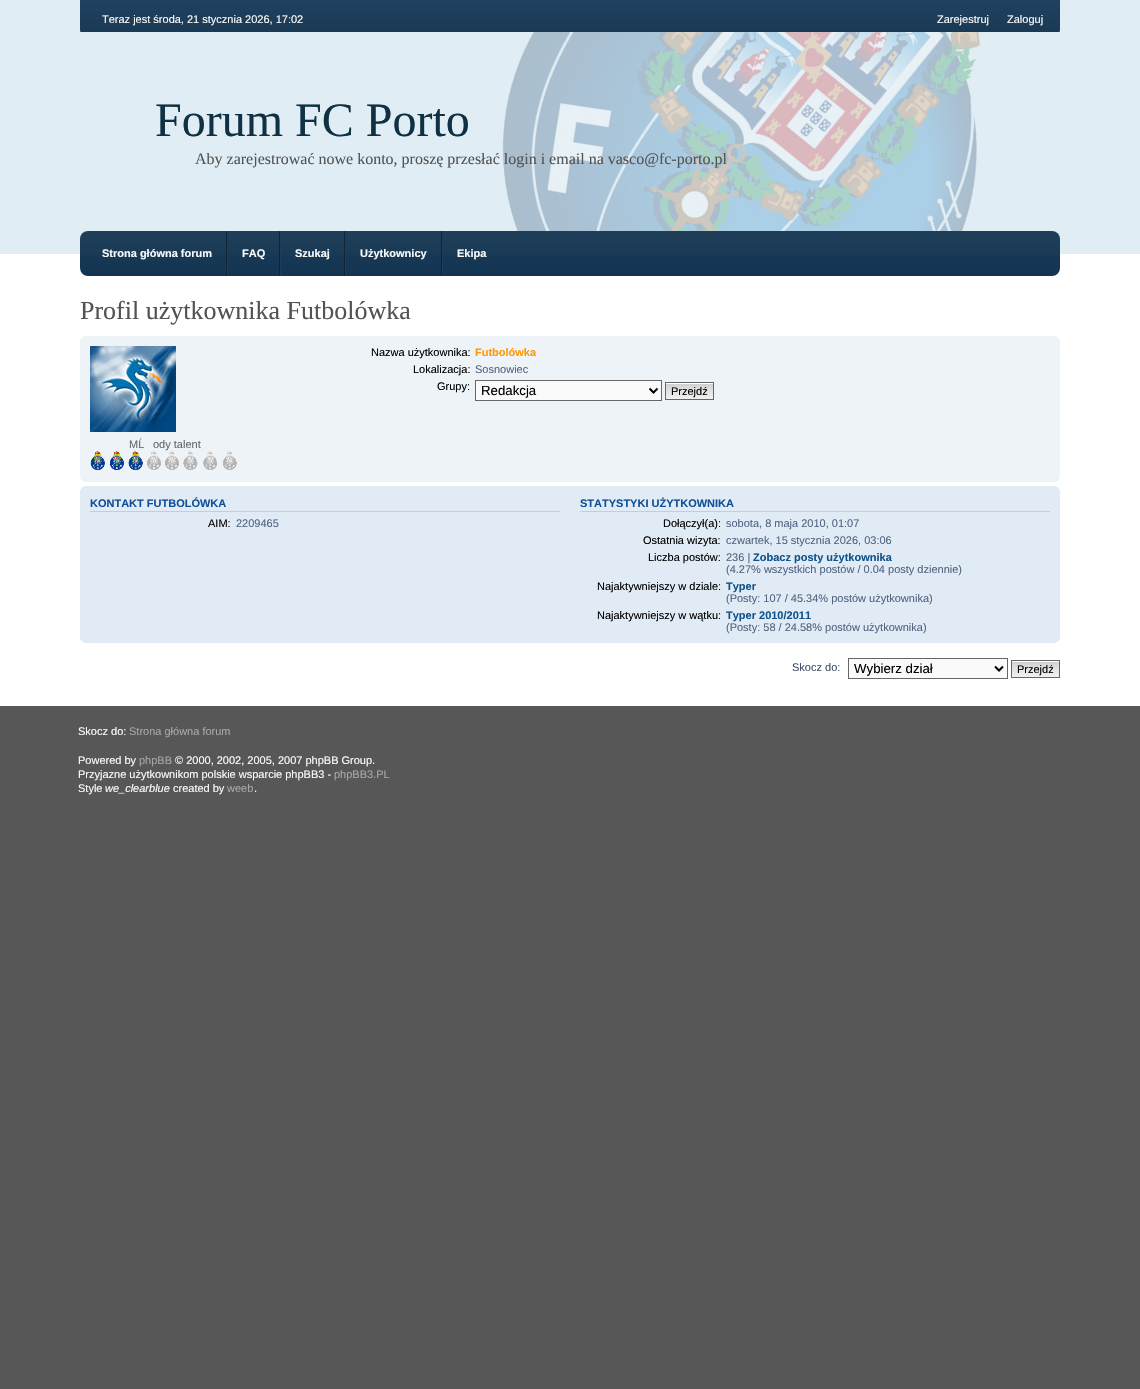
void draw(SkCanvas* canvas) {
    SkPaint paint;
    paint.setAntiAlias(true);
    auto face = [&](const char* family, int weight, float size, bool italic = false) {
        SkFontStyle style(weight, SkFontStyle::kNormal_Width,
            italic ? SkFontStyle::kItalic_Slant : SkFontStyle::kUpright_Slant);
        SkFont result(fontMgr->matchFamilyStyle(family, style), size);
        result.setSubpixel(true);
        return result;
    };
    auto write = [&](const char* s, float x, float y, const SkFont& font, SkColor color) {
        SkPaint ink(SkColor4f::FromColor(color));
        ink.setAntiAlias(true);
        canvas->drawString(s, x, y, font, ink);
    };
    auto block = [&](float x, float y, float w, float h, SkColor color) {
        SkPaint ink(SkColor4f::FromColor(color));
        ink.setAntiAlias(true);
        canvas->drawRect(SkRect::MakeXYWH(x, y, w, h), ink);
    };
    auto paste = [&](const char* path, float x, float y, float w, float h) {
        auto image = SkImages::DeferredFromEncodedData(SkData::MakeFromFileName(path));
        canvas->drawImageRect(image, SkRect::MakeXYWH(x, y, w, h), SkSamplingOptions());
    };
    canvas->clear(SK_ColorWHITE);
    block(0, 0, 1140, 254, SkColorSetRGB(224, 237, 244));
    paste("pic1.png", 80, 0, 980, 32);
    auto kFont1 = face("Liberation Sans", 400, 11);
    write("Teraz jest środa, 21 stycznia 2026, 17:02", 102, 23, kFont1, SkColorSetRGB(251, 251, 251));
    write("Zarejestruj", 937, 23, kFont1, SkColorSetRGB(251, 251, 251));
    write("Zaloguj", 1007, 23, kFont1, SkColorSetRGB(251, 251, 251));
    paste("pic2.png", 80, 32, 980, 199);
    auto kFont2 = face("Liberation Serif", 400, 48);
    write("Forum FC Porto", 155, 136, kFont2, SkColorSetRGB(16, 49, 67));
    auto kFont3 = face("Liberation Serif", 400, 16);
    write("Aby zarejestrować nowe konto, proszę przesłać login i email na vasco@fc-porto.pl", 195, 164, kFont3, SkColorSetRGB(83, 83, 83));
    paste("pic3.png", 80, 231, 980, 45);
    block(226, 231, 1, 45, SkColorSetRGB(16, 36, 53));
    auto kFont4 = face("Liberation Sans", 700, 11);
    write("Strona główna forum", 102, 257, kFont4, SkColorSetRGB(251, 251, 251));
    block(279, 231, 1, 45, SkColorSetRGB(16, 36, 53));
    block(227, 231, 1, 45, SkColorSetRGB(28, 62, 92));
    write("FAQ", 242, 257, kFont4, SkColorSetRGB(251, 251, 251));
    block(344, 231, 1, 45, SkColorSetRGB(16, 36, 53));
    block(280, 231, 1, 45, SkColorSetRGB(28, 62, 92));
    write("Szukaj", 295, 257, kFont4, SkColorSetRGB(251, 251, 251));
    block(441, 231, 1, 45, SkColorSetRGB(16, 36, 53));
    block(345, 231, 1, 45, SkColorSetRGB(28, 62, 92));
    write("Użytkownicy", 360, 257, kFont4, SkColorSetRGB(251, 251, 251));
    block(442, 231, 1, 45, SkColorSetRGB(28, 62, 92));
    write("Ekipa", 457, 257, kFont4, SkColorSetRGB(251, 251, 251));
    auto kFont5 = face("Liberation Serif", 400, 26);
    write("Profil użytkownika Futbolówka", 80, 319, kFont5, SkColorSetRGB(83, 83, 83));
    block(80, 336, 980, 146, SkColorSetRGB(238, 243, 248));
    paste("pic4.png", 80, 336, 5, 4);
    paste("pic5.png", 1055, 336, 5, 4);
    write("Nazwa użytkownika:", 371, 356, kFont1, SK_ColorBLACK);
    write("Futbolówka", 475, 356, kFont4, SkColorSetRGB(255, 153, 0));
    write("Lokalizacja:", 413, 373, kFont1, SK_ColorBLACK);
    write("Sosnowiec", 475, 373, kFont1, SkColorSetRGB(83, 100, 130));
    write("Grupy:", 437, 390, kFont1, SK_ColorBLACK);
    paint.setColor(SkColorSetRGB(250, 250, 250));
    canvas->drawRect(SkRect::MakeXYWH(475.5f, 380.5f, 186, 20), paint);
    paint.setStyle(SkPaint::kStroke_Style);
    paint.setStrokeWidth(1);
    paint.setColor(SkColorSetRGB(102, 102, 102));
    canvas->drawRect(SkRect::MakeXYWH(475.5f, 380.5f, 186, 20), paint);
    paint.setStrokeWidth(2);
    paint.setColor(SK_ColorBLACK);
    canvas->drawPath(SkPathBuilder().moveTo(649.5f, 388.5f).lineTo(653.5f, 392.5f).lineTo(657.5f, 388.5f).detach(), paint);
    auto kFont6 = face("Liberation Sans", 400, 13.25f);
    write("Redakcja", 481, 395, kFont6, SK_ColorBLACK);
    paste("pic6.png", 666, 383, 47, 16);
    paint.setStrokeWidth(1);
    paint.setColor(SkColorSetRGB(102, 102, 102));
    canvas->drawRect(SkRect::MakeXYWH(665.5f, 382.5f, 48, 17), paint);
    write("Przejdź", 671, 395, kFont1, SK_ColorBLACK);
    paste("pic7.png", 90, 346, 86, 86);
    write("MĹ", 129, 448, kFont1, SkColorSetRGB(102, 102, 102));
    write("ody talent", 153, 448, kFont1, SkColorSetRGB(102, 102, 102));
    paste("pic8.png", 90, 451, 147, 19);
    paste("pic9.png", 80, 478, 5, 4);
    paste("pic10.png", 1056, 478, 4, 4);
    block(80, 486, 980, 157, SkColorSetRGB(225, 235, 245));
    paste("pic11.png", 80, 486, 5, 5);
    paste("pic12.png", 1055, 486, 5, 5);
    block(90, 511, 470, 1, SkColorSetRGB(204, 204, 204));
    write("KONTAKT FUTBOLÓWKA", 90, 507, kFont4, SkColorSetRGB(17, 80, 152));
    write("AIM:", 208, 527, kFont1, SK_ColorBLACK);
    write("2209465", 236, 527, kFont1, SkColorSetRGB(83, 100, 130));
    block(580, 511, 470, 1, SkColorSetRGB(204, 204, 204));
    write("STATYSTYKI UŻYTKOWNIKA", 580, 507, kFont4, SkColorSetRGB(17, 80, 152));
    write("Dołączył(a):", 663, 527, kFont1, SK_ColorBLACK);
    write("sobota, 8 maja 2010, 01:07", 726, 527, kFont1, SkColorSetRGB(83, 100, 130));
    write("Ostatnia wizyta:", 643, 544, kFont1, SK_ColorBLACK);
    write("czwartek, 15 stycznia 2026, 03:06", 726, 544, kFont1, SkColorSetRGB(83, 100, 130));
    write("Liczba postów:", 648, 561, kFont1, SK_ColorBLACK);
    write("236 |", 726, 561, kFont1, SkColorSetRGB(83, 100, 130));
    write("Zobacz posty użytkownika", 753, 561, kFont4, SkColorSetRGB(16, 82, 137));
    write("(4.27% wszystkich postów / 0.04 posty dziennie)", 726, 573, kFont1, SkColorSetRGB(83, 100, 130));
    write("Najaktywniejszy w dziale:", 597, 590, kFont1, SK_ColorBLACK);
    write("Typer", 726, 590, kFont4, SkColorSetRGB(16, 82, 137));
    write("(Posty: 107 / 45.34% postów użytkownika)", 726, 602, kFont1, SkColorSetRGB(83, 100, 130));
    write("Najaktywniejszy w wątku:", 597, 619, kFont1, SK_ColorBLACK);
    write("Typer 2010/2011", 726, 619, kFont4, SkColorSetRGB(16, 82, 137));
    write("(Posty: 58 / 24.58% postów użytkownika)", 726, 631, kFont1, SkColorSetRGB(83, 100, 130));
    paste("pic13.png", 80, 638, 5, 5);
    paste("pic14.png", 1055, 638, 5, 5);
    write("Skocz do:", 792, 671, kFont1, SkColorSetRGB(66, 80, 103));
    paint.setStyle(SkPaint::kFill_Style);
    paint.setColor(SkColorSetRGB(250, 250, 250));
    canvas->drawRect(SkRect::MakeXYWH(848.5f, 658.5f, 159, 20), paint);
    paint.setStyle(SkPaint::kStroke_Style);
    paint.setColor(SkColorSetRGB(102, 102, 102));
    canvas->drawRect(SkRect::MakeXYWH(848.5f, 658.5f, 159, 20), paint);
    paint.setStrokeWidth(2);
    paint.setColor(SK_ColorBLACK);
    canvas->drawPath(SkPathBuilder().moveTo(995, 666.5f).lineTo(999, 670.5f).lineTo(1003, 666.5f).detach(), paint);
    write("Wybierz dział", 854, 673, kFont6, SK_ColorBLACK);
    paste("pic6.png", 1012, 661, 47, 16);
    paint.setStrokeWidth(1);
    paint.setColor(SkColorSetRGB(102, 102, 102));
    canvas->drawRect(SkRect::MakeXYWH(1011.5f, 660.5f, 48, 17), paint);
    write("Przejdź", 1017, 673, kFont1, SK_ColorBLACK);
    block(0, 706, 1140, 683, SkColorSetRGB(88, 87, 87));
    write("Skocz do:", 78, 735, kFont1, SkColorSetRGB(251, 251, 251));
    write("Strona główna forum", 129, 735, kFont1, SkColorSetRGB(168, 166, 166));
    write("Powered by", 78, 764, kFont1, SkColorSetRGB(251, 251, 251));
    write("phpBB", 139, 764, kFont1, SkColorSetRGB(168, 166, 166));
    write("© 2000, 2002, 2005, 2007 phpBB Group.", 175, 764, kFont1, SkColorSetRGB(251, 251, 251));
    write("Przyjazne użytkownikom polskie wsparcie phpBB3 -", 78, 778, kFont1, SkColorSetRGB(251, 251, 251));
    write("phpBB3.PL", 334, 778, kFont1, SkColorSetRGB(168, 166, 166));
    write("Style", 78, 792, kFont1, SkColorSetRGB(251, 251, 251));
    auto kFont7 = face("Liberation Sans", 400, 11, true);
    write("we_clearblue", 105, 792, kFont7, SkColorSetRGB(251, 251, 251));
    write("created by", 173, 792, kFont1, SkColorSetRGB(251, 251, 251));
    write("weeb", 227, 792, kFont1, SkColorSetRGB(168, 166, 166));
    write(".", 254, 792, kFont1, SkColorSetRGB(251, 251, 251));
}
